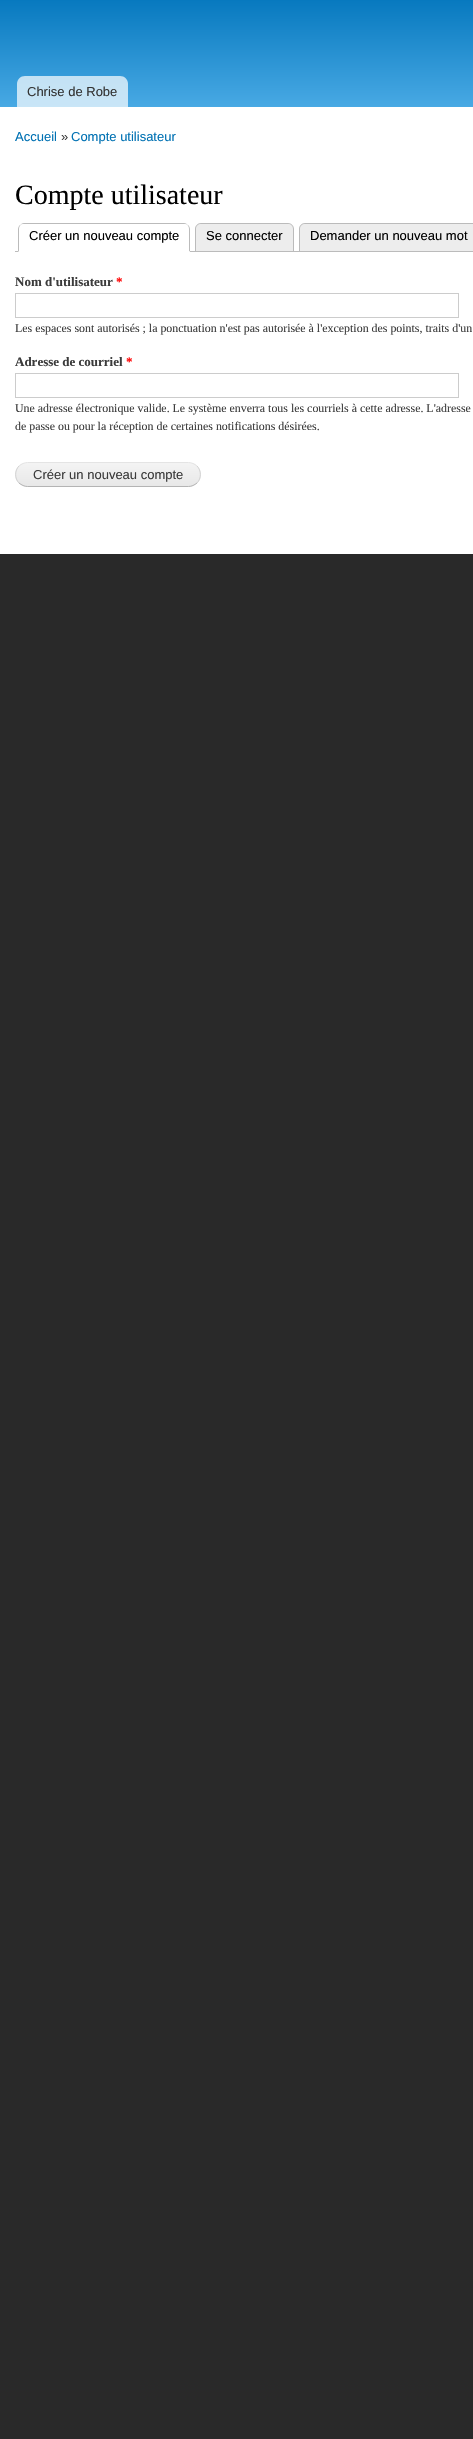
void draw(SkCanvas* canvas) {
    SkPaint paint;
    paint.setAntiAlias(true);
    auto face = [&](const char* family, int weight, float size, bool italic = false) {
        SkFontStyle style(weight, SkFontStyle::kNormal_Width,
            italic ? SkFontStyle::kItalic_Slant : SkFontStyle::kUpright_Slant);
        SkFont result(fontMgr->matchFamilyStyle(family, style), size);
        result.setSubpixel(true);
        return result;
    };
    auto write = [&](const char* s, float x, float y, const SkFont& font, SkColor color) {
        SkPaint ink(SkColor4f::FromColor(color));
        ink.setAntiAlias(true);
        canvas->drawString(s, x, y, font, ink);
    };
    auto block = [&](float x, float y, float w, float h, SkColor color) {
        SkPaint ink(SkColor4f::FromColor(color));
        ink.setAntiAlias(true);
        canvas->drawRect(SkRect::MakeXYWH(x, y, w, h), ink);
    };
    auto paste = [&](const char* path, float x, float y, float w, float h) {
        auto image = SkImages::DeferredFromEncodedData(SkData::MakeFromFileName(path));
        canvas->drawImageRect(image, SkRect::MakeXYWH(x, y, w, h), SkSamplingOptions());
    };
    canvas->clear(SkColorSetRGB(41, 41, 41));
    block(0, 107, 473, 447, SK_ColorWHITE);
    {
        const SkColor colors[] = {SkColorSetRGB(7, 121, 191), SkColorSetRGB(72, 169, 228)};
        const float stops[] = {0, 1};
        const SkPoint ends[] = {{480, 0}, {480, 107}};
        paint.setShader(SkGradientShader::MakeLinear(ends, colors, stops, 2, SkTileMode::kClamp));
        paint.setAlpha(255);
    }
    canvas->drawRect(SkRect::MakeXYWH(0, 0, 473, 107), paint);
    paint.setShader(nullptr);
    paint.setColor(SkColorSetARGB(179, 255, 255, 255));
    canvas->drawPath(SkPathBuilder().moveTo(25, 76).lineTo(120, 76).cubicTo(124.5f, 76, 128, 79.5f, 128, 84).lineTo(128, 107).lineTo(17, 107).lineTo(17, 84).cubicTo(17, 79.5f, 20.5f, 76, 25, 76).close().detach(), paint);
    auto kFont1 = face("Liberation Sans", 400, 13);
    write("Chrise de Robe", 27, 96, kFont1, SkColorSetRGB(51, 51, 51));
    write("Accueil", 15, 141, kFont1, SkColorSetRGB(0, 113, 179));
    write("»", 61, 141, kFont1, SkColorSetRGB(59, 59, 59));
    write("Compte utilisateur", 71, 141, kFont1, SkColorSetRGB(0, 113, 179));
    auto kFont2 = face("Liberation Serif", 400, 28);
    write("Compte utilisateur", 15, 204, kFont2, SK_ColorBLACK);
    block(15, 251, 458, 1, SkColorSetRGB(187, 187, 187));
    paint.setColor(SK_ColorWHITE);
    canvas->drawPath(SkPathBuilder().moveTo(24, 223).lineTo(184, 223).cubicTo(187.5f, 223, 190, 225.5f, 190, 229).lineTo(190, 252).lineTo(18, 252).lineTo(18, 229).cubicTo(18, 225.5f, 20.5f, 223, 24, 223).close().detach(), paint);
    paint.setColor(SkColorSetRGB(187, 187, 187));
    canvas->drawPath(SkPathBuilder().moveTo(24, 223).cubicTo(22, 223, 21, 224, 20, 225).cubicTo(21, 224, 22, 224, 24, 224).lineTo(184, 224).cubicTo(186, 224, 187, 224, 188, 225).cubicTo(187, 224, 186, 223, 184, 223).close().detach(), paint);
    canvas->drawPath(SkPathBuilder().moveTo(190, 252).lineTo(190, 229).cubicTo(190, 227.5f, 189, 226, 188, 225).lineTo(187.5f, 225.5f).cubicTo(188.5f, 226, 189, 227.5f, 189, 229).lineTo(189, 251).close().detach(), paint);
    paint.setColor(SK_ColorWHITE);
    canvas->drawPath(SkPathBuilder().moveTo(190, 252).lineTo(189, 251).lineTo(19, 251).lineTo(18, 252).close().detach(), paint);
    paint.setColor(SkColorSetRGB(187, 187, 187));
    canvas->drawPath(SkPathBuilder().moveTo(18, 252).lineTo(19, 251).lineTo(19, 229).cubicTo(19, 227.5f, 19.5f, 226, 20.5f, 225.5f).lineTo(20, 225).cubicTo(19, 226, 18, 227.5f, 18, 229).close().detach(), paint);
    write("Créer un nouveau compte", 29, 240, kFont1, SK_ColorBLACK);
    paint.setColor(SkColorSetRGB(237, 237, 237));
    canvas->drawPath(SkPathBuilder().moveTo(201, 223).lineTo(288, 223).cubicTo(291.5f, 223, 294, 225.5f, 294, 229).lineTo(294, 251).lineTo(195, 251).lineTo(195, 229).cubicTo(195, 225.5f, 197.5f, 223, 201, 223).close().detach(), paint);
    paint.setColor(SkColorSetRGB(187, 187, 187));
    canvas->drawPath(SkPathBuilder(SkPathFillType::kEvenOdd).moveTo(201, 223).lineTo(288, 223).cubicTo(291, 223, 294, 226, 294, 229).lineTo(294, 251).lineTo(195, 251).lineTo(195, 229).cubicTo(195, 226, 198, 223, 201, 223).close().moveTo(201, 224).lineTo(288, 224).cubicTo(291, 224, 293, 226, 293, 229).lineTo(293, 251).lineTo(196, 251).lineTo(196, 229).cubicTo(196, 226, 198, 224, 201, 224).close().detach(), paint);
    write("Se connecter", 206, 240, kFont1, SK_ColorBLACK);
    paint.setColor(SkColorSetRGB(237, 237, 237));
    canvas->drawPath(SkPathBuilder().moveTo(305, 223).lineTo(473, 223).cubicTo(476.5f, 223, 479, 225.5f, 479, 229).lineTo(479, 251).lineTo(299, 251).lineTo(299, 229).cubicTo(299, 225.5f, 301.5f, 223, 305, 223).close().detach(), paint);
    paint.setColor(SkColorSetRGB(187, 187, 187));
    canvas->drawPath(SkPathBuilder(SkPathFillType::kEvenOdd).moveTo(305, 223).lineTo(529, 223).cubicTo(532, 223, 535, 226, 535, 229).lineTo(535, 251).lineTo(299, 251).lineTo(299, 229).cubicTo(299, 226, 302, 223, 305, 223).close().moveTo(305, 224).lineTo(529, 224).cubicTo(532, 224, 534, 226, 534, 229).lineTo(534, 251).lineTo(300, 251).lineTo(300, 229).cubicTo(300, 226, 302, 224, 305, 224).close().detach(), paint);
    write("Demander un nouveau mot", 310, 240, kFont1, SK_ColorBLACK);
    auto kFont3 = face("Liberation Serif", 700, 13);
    write("Nom d'utilisateur", 15, 286, kFont3, SkColorSetRGB(59, 59, 59));
    write("*", 116, 286, kFont3, SkColorSetRGB(255, 0, 0));
    paint.setStyle(SkPaint::kStroke_Style);
    paint.setStrokeWidth(1);
    paint.setColor(SkColorSetRGB(204, 204, 204));
    canvas->drawRect(SkRect::MakeXYWH(15.5f, 293.5f, 443, 24), paint);
    auto kFont4 = face("Liberation Serif", 400, 11.9f);
    write("Les espaces sont autorisés ; la ponctuation n'est pas autorisée à l'exception des points, traits d'un", 15, 332, kFont4, SkColorSetRGB(59, 59, 59));
    write("Adresse de courriel", 15, 366, kFont3, SkColorSetRGB(59, 59, 59));
    write("*", 126, 366, kFont3, SkColorSetRGB(255, 0, 0));
    canvas->drawRect(SkRect::MakeXYWH(15.5f, 373.5f, 443, 24), paint);
    write("Une adresse électronique valide. Le système enverra tous les courriels à cette adresse. L'adresse", 15, 412, kFont4, SkColorSetRGB(59, 59, 59));
    write("de passe ou pour la réception de certaines notifications désirées.", 15, 430, kFont4, SkColorSetRGB(59, 59, 59));
    paste("pic1.png", 15, 463, 186, 24);
    paint.setColor(SkColorSetRGB(228, 228, 228));
    canvas->drawPath(SkPathBuilder().moveTo(19, 466).cubicTo(21.5f, 464, 24.5f, 462.5f, 27.5f, 462.5f).lineTo(188.5f, 462.5f).cubicTo(191.5f, 462.5f, 194.5f, 464, 197, 466).detach(), paint);
    paint.setColor(SkColorSetRGB(210, 210, 210));
    canvas->drawPath(SkPathBuilder().moveTo(197, 466).cubicTo(201.5f, 470.5f, 201.5f, 478.5f, 197, 483).detach(), paint);
    paint.setColor(SkColorSetRGB(180, 180, 180));
    canvas->drawPath(SkPathBuilder().moveTo(197, 483).cubicTo(194.5f, 485, 191.5f, 486.5f, 188.5f, 486.5f).lineTo(27.5f, 486.5f).cubicTo(24.5f, 486.5f, 21.5f, 485, 19, 483).detach(), paint);
    paint.setColor(SkColorSetRGB(210, 210, 210));
    canvas->drawPath(SkPathBuilder().moveTo(19, 483).cubicTo(14.5f, 478.5f, 14.5f, 470.5f, 19, 466).detach(), paint);
    write("Créer un nouveau compte", 33, 479, kFont1, SkColorSetRGB(59, 59, 59));
}
